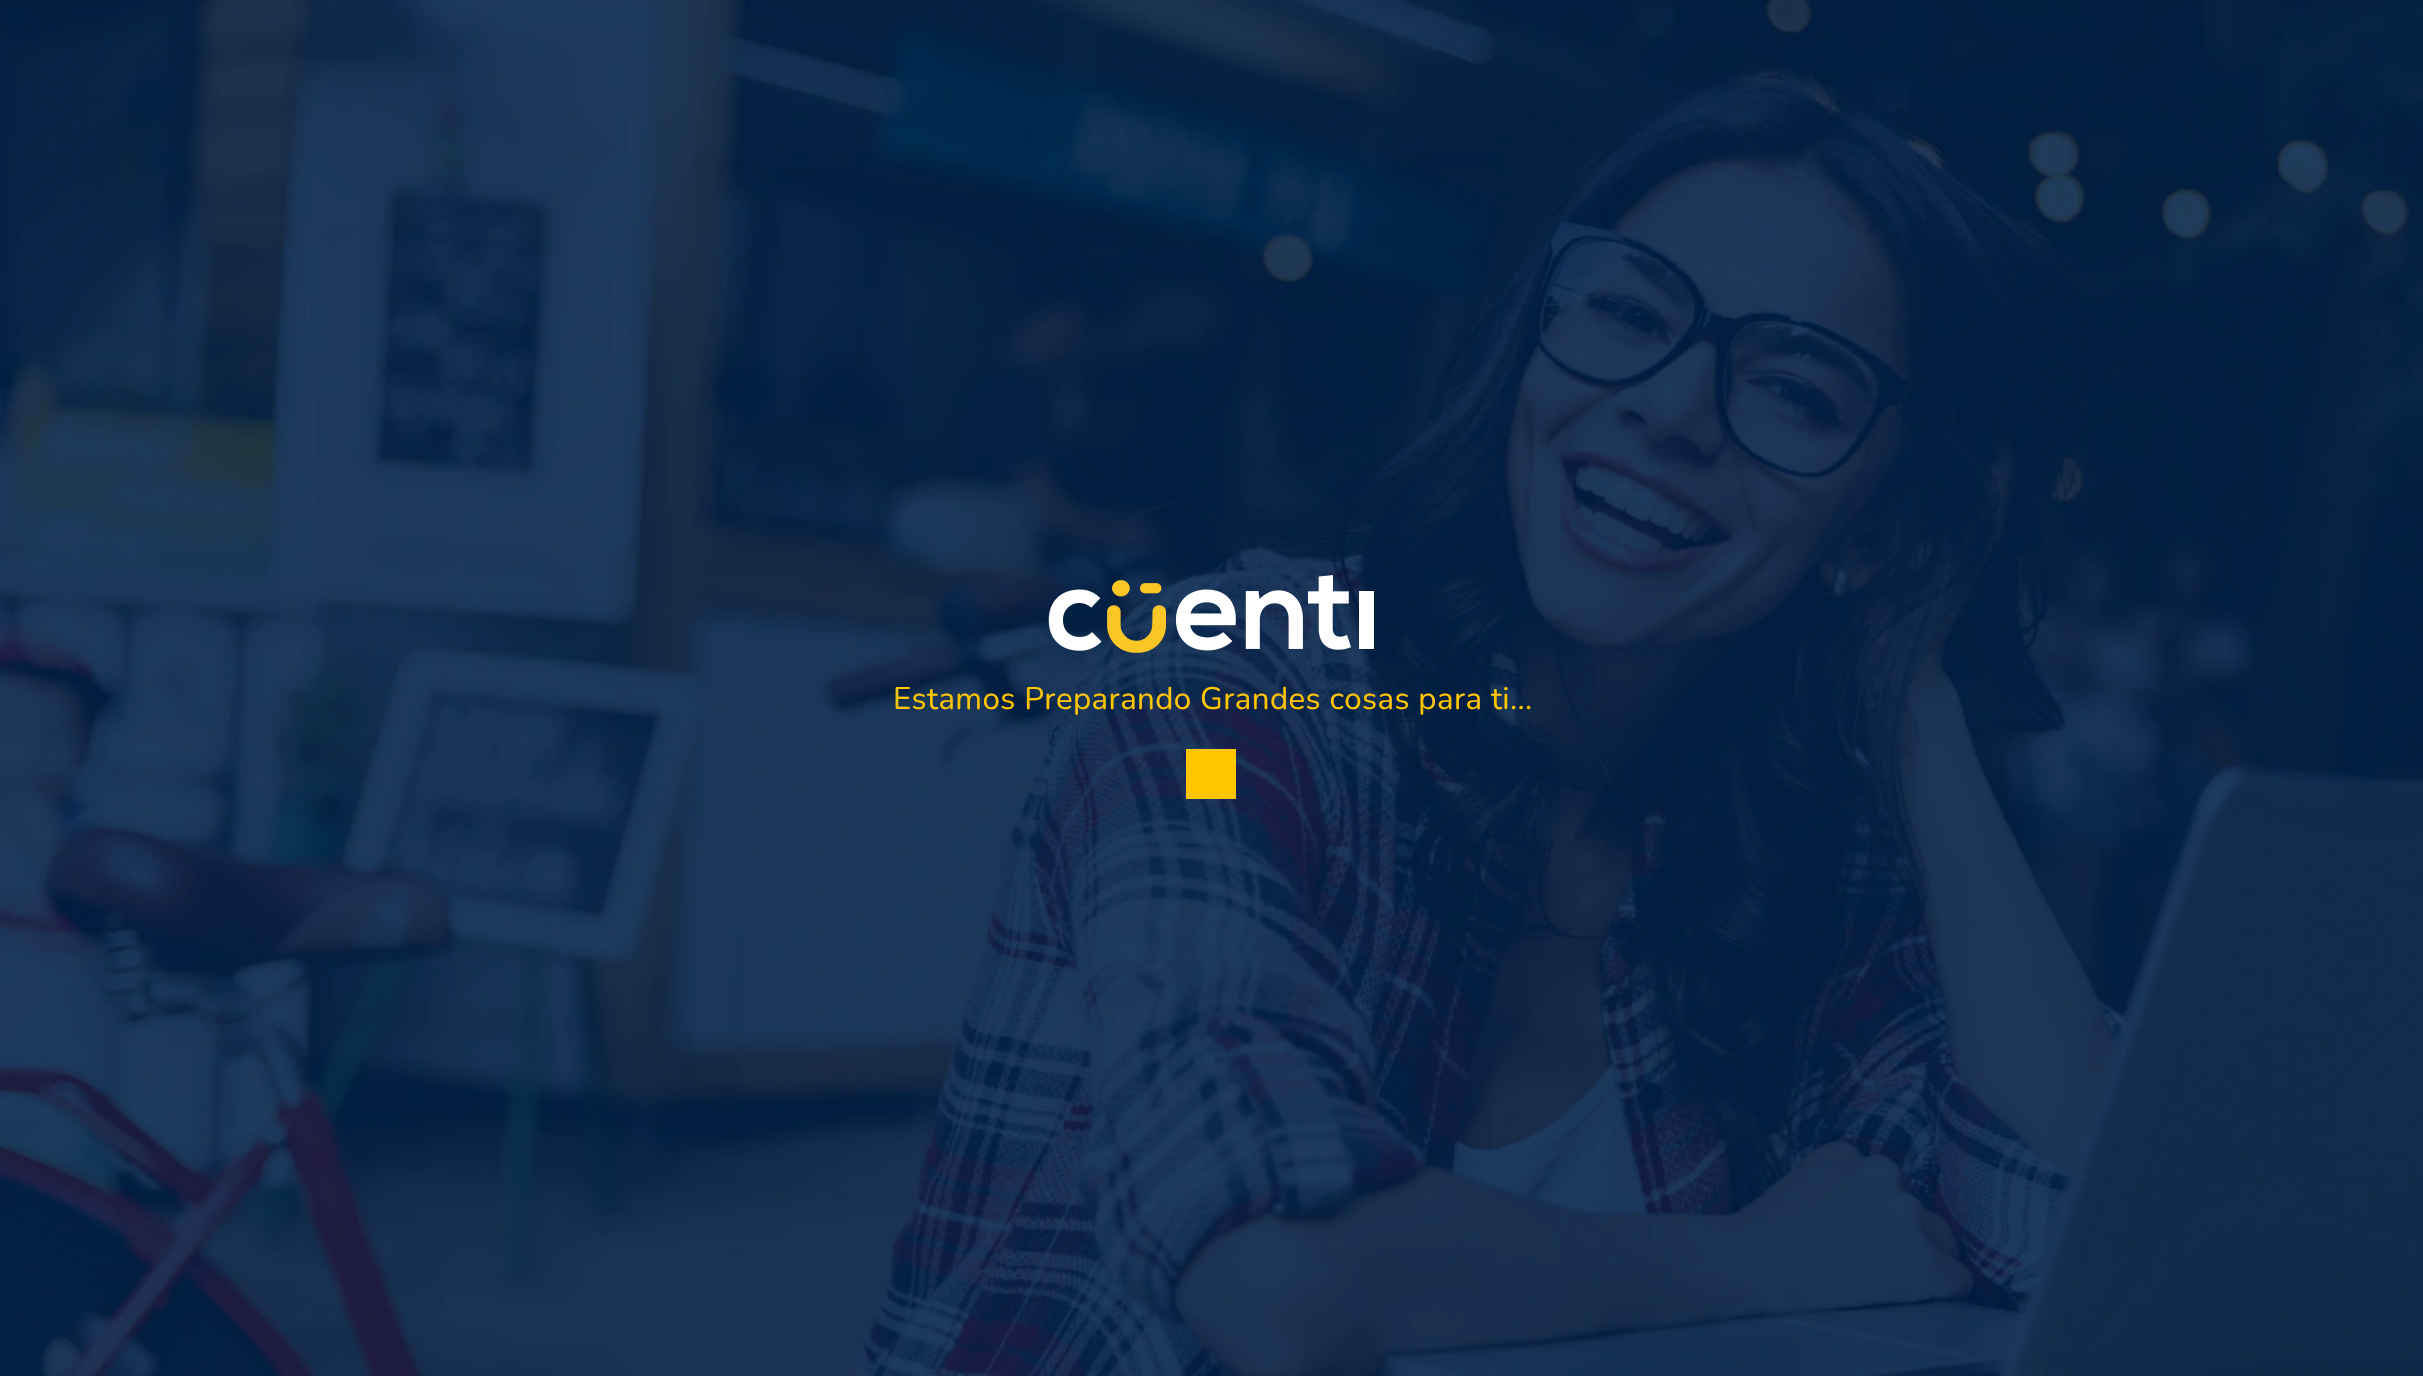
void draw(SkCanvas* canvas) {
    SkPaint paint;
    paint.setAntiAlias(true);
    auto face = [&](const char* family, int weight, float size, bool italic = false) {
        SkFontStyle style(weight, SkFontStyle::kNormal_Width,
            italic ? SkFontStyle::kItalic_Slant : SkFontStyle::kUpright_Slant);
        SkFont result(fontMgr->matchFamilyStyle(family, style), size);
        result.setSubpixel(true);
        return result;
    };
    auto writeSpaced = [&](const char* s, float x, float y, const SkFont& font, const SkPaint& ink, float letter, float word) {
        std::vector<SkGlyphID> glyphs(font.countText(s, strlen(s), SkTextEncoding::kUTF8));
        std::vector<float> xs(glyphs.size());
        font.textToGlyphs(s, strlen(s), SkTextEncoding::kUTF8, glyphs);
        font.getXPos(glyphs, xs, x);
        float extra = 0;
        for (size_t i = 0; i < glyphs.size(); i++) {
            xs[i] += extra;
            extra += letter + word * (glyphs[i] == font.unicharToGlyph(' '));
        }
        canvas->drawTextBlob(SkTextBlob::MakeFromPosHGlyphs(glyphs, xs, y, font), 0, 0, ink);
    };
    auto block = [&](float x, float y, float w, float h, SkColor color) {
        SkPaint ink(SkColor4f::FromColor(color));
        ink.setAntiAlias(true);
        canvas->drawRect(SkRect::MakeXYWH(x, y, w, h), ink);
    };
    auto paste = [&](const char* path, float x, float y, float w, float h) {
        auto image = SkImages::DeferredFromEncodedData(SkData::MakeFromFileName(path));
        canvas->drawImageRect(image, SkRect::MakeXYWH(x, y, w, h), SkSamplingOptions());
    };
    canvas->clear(SK_ColorWHITE);
    paste("pic1.png", 0, 0, 2423, 1376);
    paste("pic2.png", 1048, 575, 326, 78);
    auto kFont1 = face("Nunito", 400, 31.25f);
    paint.setColor(SkColorSetRGB(255, 198, 0));
    writeSpaced("Estamos Preparando Grandes cosas para ti...", 893, 709, kFont1, paint, 0.4f, 0);
    block(1186, 749, 50, 17, SkColorSetRGB(255, 198, 0));
    block(1186, 766, 50, 17, SkColorSetRGB(255, 198, 0));
    block(1186, 783, 50, 16, SkColorSetRGB(255, 198, 0));
}
